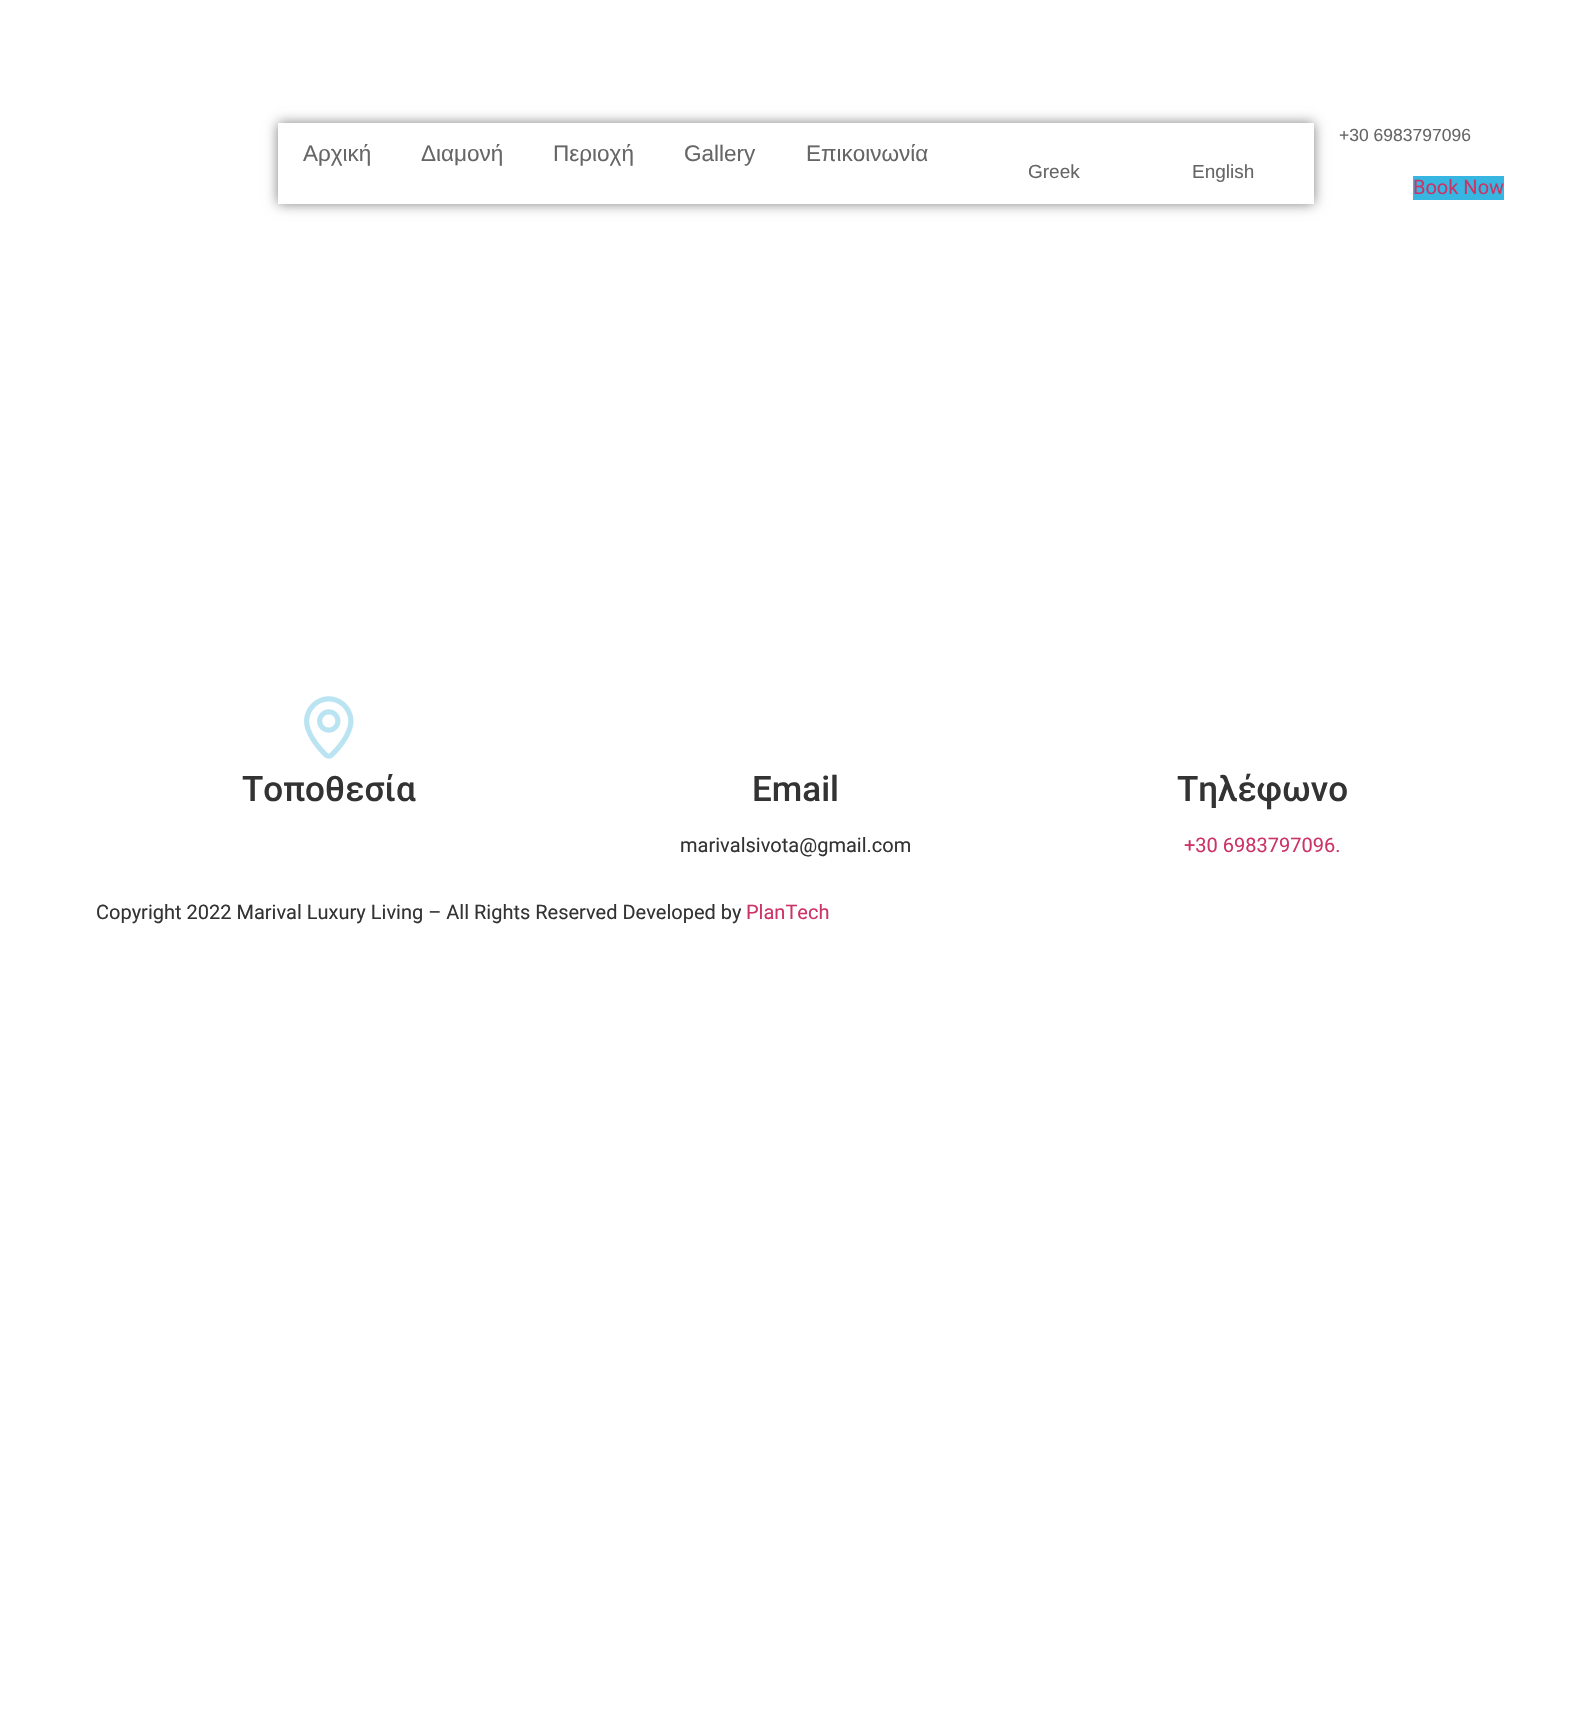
void draw(SkCanvas* canvas) {
    SkPaint paint;
    paint.setAntiAlias(true);
    auto face = [&](const char* family, int weight, float size, bool italic = false) {
        SkFontStyle style(weight, SkFontStyle::kNormal_Width,
            italic ? SkFontStyle::kItalic_Slant : SkFontStyle::kUpright_Slant);
        SkFont result(fontMgr->matchFamilyStyle(family, style), size);
        result.setSubpixel(true);
        return result;
    };
    auto write = [&](const char* s, float x, float y, const SkFont& font, SkColor color) {
        SkPaint ink(SkColor4f::FromColor(color));
        ink.setAntiAlias(true);
        canvas->drawString(s, x, y, font, ink);
    };
    auto block = [&](float x, float y, float w, float h, SkColor color) {
        SkPaint ink(SkColor4f::FromColor(color));
        ink.setAntiAlias(true);
        canvas->drawRect(SkRect::MakeXYWH(x, y, w, h), ink);
    };
    auto paste = [&](const char* path, float x, float y, float w, float h) {
        auto image = SkImages::DeferredFromEncodedData(SkData::MakeFromFileName(path));
        canvas->drawImageRect(image, SkRect::MakeXYWH(x, y, w, h), SkSamplingOptions());
    };
    canvas->clear(SK_ColorWHITE);
    canvas->save();
    canvas->clipPath(SkPathBuilder(SkPathFillType::kEvenOdd).moveTo(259, 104).lineTo(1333, 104).lineTo(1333, 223).lineTo(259, 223).close().moveTo(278, 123).lineTo(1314, 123).lineTo(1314, 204).lineTo(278, 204).close().detach(), true);
    paint.setColor(SkColorSetARGB(128, 0, 0, 0));
    paint.setMaskFilter(SkMaskFilter::MakeBlur(kNormal_SkBlurStyle, 6));
    canvas->drawRect(SkRect::MakeXYWH(278, 123, 1036, 81), paint);
    paint.setMaskFilter(nullptr);
    canvas->restore();
    auto kFont1 = face("Liberation Sans", 400, 22.5f);
    write("Αρχική", 303, 161, kFont1, SkColorSetRGB(102, 102, 102));
    write("Διαμονή", 421, 161, kFont1, SkColorSetRGB(102, 102, 102));
    write("Περιοχή", 553, 161, kFont1, SkColorSetRGB(102, 102, 102));
    write("Gallery", 684, 161, kFont1, SkColorSetRGB(102, 102, 102));
    write("Επικοινωνία", 806, 161, kFont1, SkColorSetRGB(102, 102, 102));
    auto kFont2 = face("Liberation Sans", 400, 19);
    write("Greek", 1028, 178, kFont2, SkColorSetRGB(102, 102, 102));
    write("English", 1192, 178, kFont2, SkColorSetRGB(102, 102, 102));
    auto kFont3 = face("Liberation Sans", 400, 17.5f);
    write("+30 6983797096", 1339, 141, kFont3, SkColorSetRGB(102, 102, 102));
    block(1413, 176, 91, 24, SkColorSetRGB(54, 182, 224));
    auto kFont4 = face("Roboto", 400, 20);
    write("Book Now", 1413, 194, kFont4, SkColorSetRGB(204, 51, 102));
    paste("pic1.png", 304, 696, 50, 63);
    auto kFont5 = face("Roboto", 500, 35);
    write("Τοποθεσία", 242, 801, kFont5, SkColorSetRGB(51, 51, 51));
    write("Email", 752, 801, kFont5, SkColorSetRGB(51, 51, 51));
    write("marivalsivota@gmail.com", 680, 852, kFont4, SkColorSetRGB(51, 51, 51));
    write("Τηλέφωνο", 1177, 801, kFont5, SkColorSetRGB(51, 51, 51));
    write("+30 6983797096.", 1184, 852, kFont4, SkColorSetRGB(204, 51, 102));
    write("Copyright 2022 Marival Luxury Living – All Rights Reserved Developed by", 96, 919, kFont4, SkColorSetRGB(51, 51, 51));
    write("PlanTech", 746, 919, kFont4, SkColorSetRGB(204, 51, 102));
}
